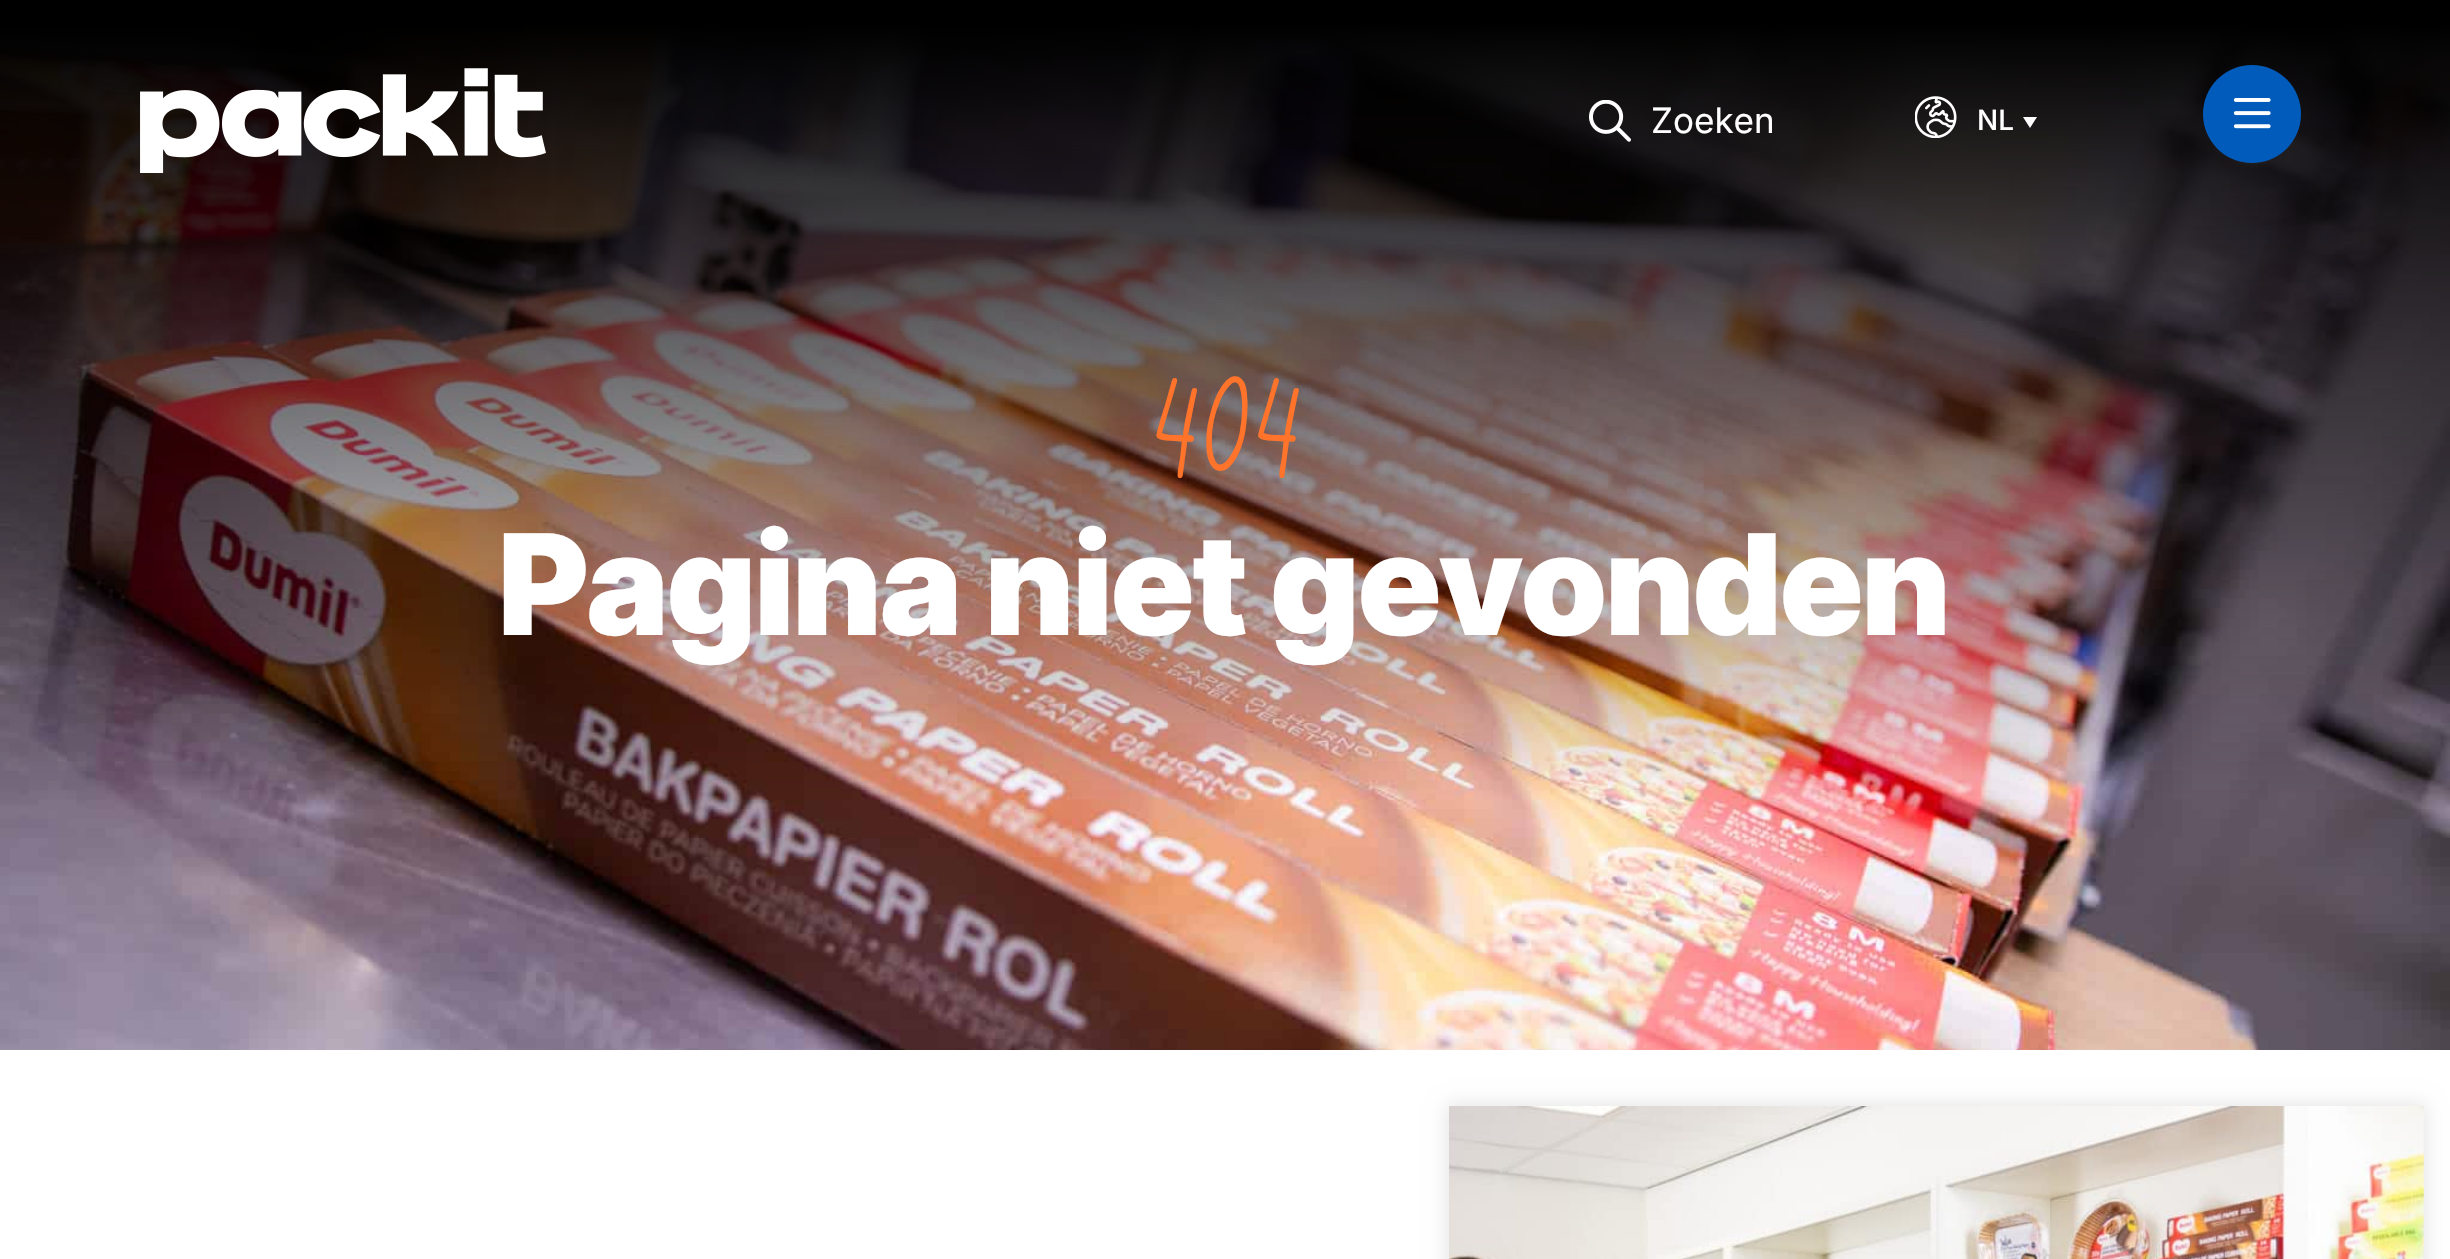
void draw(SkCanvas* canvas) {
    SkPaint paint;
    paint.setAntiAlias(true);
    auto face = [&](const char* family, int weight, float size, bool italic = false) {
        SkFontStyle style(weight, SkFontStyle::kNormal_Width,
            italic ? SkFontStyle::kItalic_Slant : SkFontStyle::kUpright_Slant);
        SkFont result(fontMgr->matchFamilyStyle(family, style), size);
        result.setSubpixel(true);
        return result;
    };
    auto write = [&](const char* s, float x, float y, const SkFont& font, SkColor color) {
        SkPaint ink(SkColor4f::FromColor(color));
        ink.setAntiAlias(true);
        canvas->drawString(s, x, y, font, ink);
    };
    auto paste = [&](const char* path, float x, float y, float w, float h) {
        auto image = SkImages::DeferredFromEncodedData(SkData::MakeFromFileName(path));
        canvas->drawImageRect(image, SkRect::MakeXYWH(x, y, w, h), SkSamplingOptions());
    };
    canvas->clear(SK_ColorWHITE);
    paste("pic1.png", 0, 0, 2450, 1050);
    paste("pic2.png", 140, 68, 406, 105);
    paste("pic3.png", 1589, 100, 42, 42);
    auto kFont1 = face("Inter", 400, 35);
    write("Zoeken", 1651, 133, kFont1, SK_ColorWHITE);
    paste("pic4.png", 1915, 96, 42, 42);
    auto kFont2 = face("Inter", 500, 28);
    write("NL", 1977, 130, kFont2, SK_ColorWHITE);
    paint.setColor(SK_ColorWHITE);
    canvas->drawPath(SkPathBuilder().moveTo(2023, 117).lineTo(2037, 117).lineTo(2030, 128).close().detach(), paint);
    paint.setColor(SkColorSetRGB(0, 91, 187));
    canvas->drawCircle(2252, 114, 49, paint);
    paste("pic5.png", 2233, 98, 38, 31);
    auto kFont3 = face("Square Peg", 400, 140);
    write("404", 1149, 467, kFont3, SkColorSetRGB(255, 115, 43));
    auto kFont4 = face("Inter Tight", 900, 140);
    write("Pagina niet gevonden", 499, 635, kFont4, SK_ColorWHITE);
    paint.setColor(SkColorSetARGB(26, 0, 0, 0));
    paint.setMaskFilter(SkMaskFilter::MakeBlur(kNormal_SkBlurStyle, 9));
    canvas->drawRect(SkRect::MakeXYWH(1447, 1104, 979, 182), paint);
    paint.setMaskFilter(nullptr);
    paste("pic6.png", 1449, 1106, 975, 153);
}
